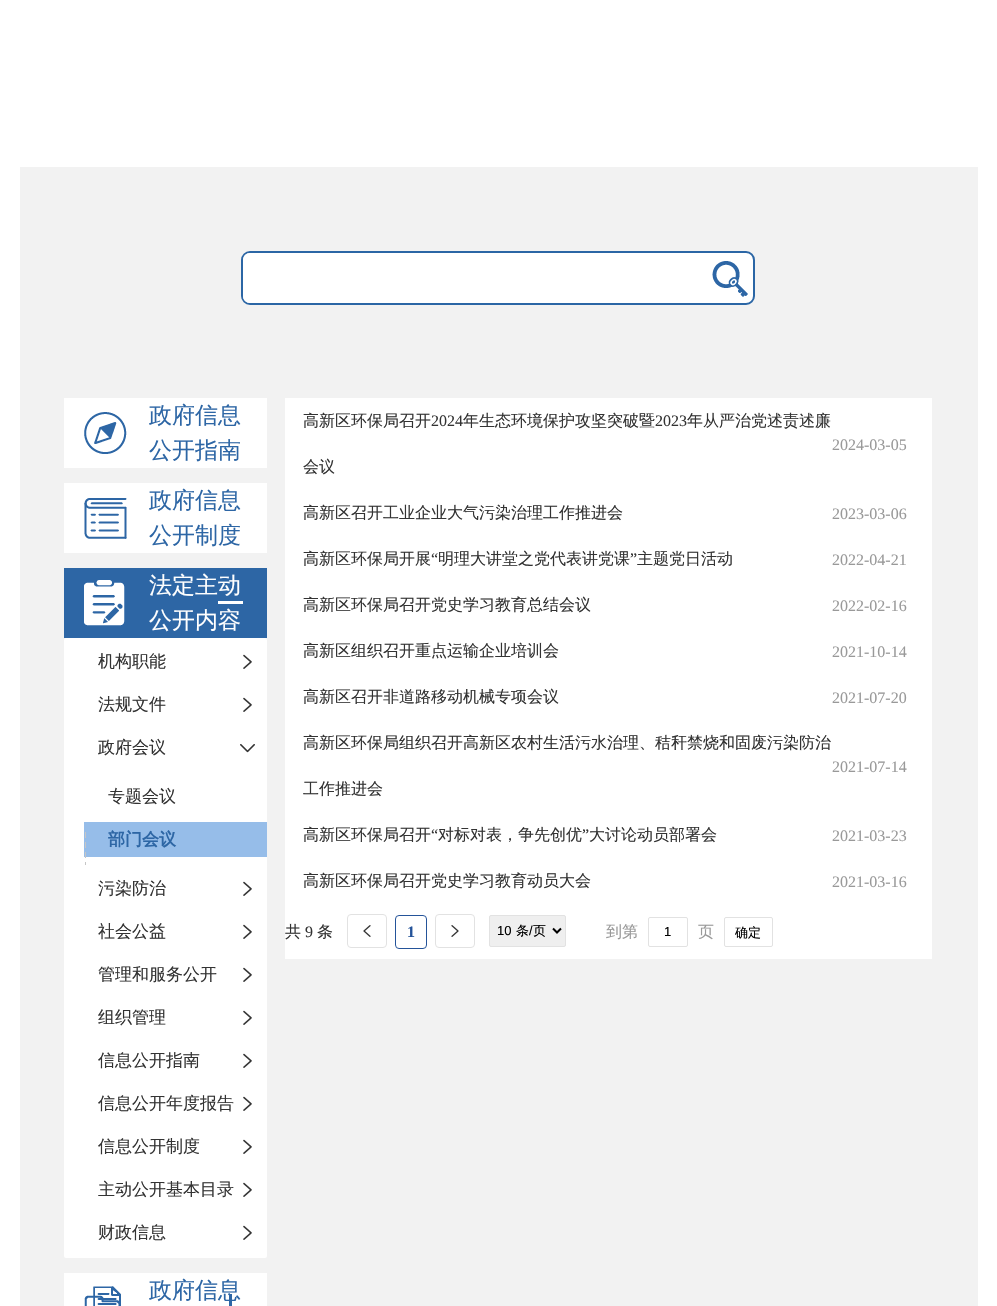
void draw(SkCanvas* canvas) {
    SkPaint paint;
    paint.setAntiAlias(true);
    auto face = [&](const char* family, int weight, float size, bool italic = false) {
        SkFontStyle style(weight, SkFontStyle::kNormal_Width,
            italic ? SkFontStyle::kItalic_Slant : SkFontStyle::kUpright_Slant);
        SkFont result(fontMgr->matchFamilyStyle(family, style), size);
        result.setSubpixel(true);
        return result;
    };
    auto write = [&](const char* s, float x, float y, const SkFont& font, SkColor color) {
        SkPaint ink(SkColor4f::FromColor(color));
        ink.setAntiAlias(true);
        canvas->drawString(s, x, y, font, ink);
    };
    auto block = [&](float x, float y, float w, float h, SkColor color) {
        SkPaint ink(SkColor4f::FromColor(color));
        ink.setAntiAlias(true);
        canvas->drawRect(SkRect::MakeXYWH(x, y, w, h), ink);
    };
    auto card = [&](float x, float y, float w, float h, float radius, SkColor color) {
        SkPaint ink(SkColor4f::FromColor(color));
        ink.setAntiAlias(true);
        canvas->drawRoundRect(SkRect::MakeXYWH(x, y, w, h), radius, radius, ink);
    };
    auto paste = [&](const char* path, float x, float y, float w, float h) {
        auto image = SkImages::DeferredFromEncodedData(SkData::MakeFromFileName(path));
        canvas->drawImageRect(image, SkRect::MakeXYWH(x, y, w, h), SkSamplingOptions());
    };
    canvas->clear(SK_ColorWHITE);
    block(20, 167, 958, 1139, SkColorSetRGB(242, 242, 242));
    paint.setColor(SK_ColorWHITE);
    canvas->drawRoundRect(SkRect::MakeXYWH(242, 252, 512, 52), 8, 8, paint);
    paint.setStyle(SkPaint::kStroke_Style);
    paint.setStrokeWidth(2);
    paint.setColor(SkColorSetRGB(43, 102, 165));
    canvas->drawRoundRect(SkRect::MakeXYWH(242, 252, 512, 52), 8, 8, paint);
    paint.setStyle(SkPaint::kFill_Style);
    paint.setColor(SK_ColorWHITE);
    canvas->drawPath(SkPathBuilder().moveTo(250, 253).lineTo(712, 253).lineTo(712, 303).lineTo(250, 303).cubicTo(246, 303, 243, 300, 243, 296).lineTo(243, 260).cubicTo(243, 256, 246, 253, 250, 253).close().detach(), paint);
    paste("pic1.png", 712, 261, 36, 36);
    block(64, 398, 203, 70, SK_ColorWHITE);
    paste("pic2.png", 84, 412, 43, 42);
    auto kFont1 = face("WenQuanYi Zen Hei", 500, 23);
    write("政府信息", 149, 423, kFont1, SkColorSetRGB(45, 102, 165));
    write("公开指南", 149, 458, kFont1, SkColorSetRGB(45, 102, 165));
    block(64, 483, 203, 70, SK_ColorWHITE);
    paste("pic3.png", 84, 498, 43, 41);
    write("政府信息", 149, 508, kFont1, SkColorSetRGB(45, 102, 165));
    write("公开制度", 149, 543, kFont1, SkColorSetRGB(45, 102, 165));
    block(64, 568, 203, 70, SkColorSetRGB(45, 102, 165));
    paste("pic4.png", 84, 580, 41, 46);
    write("法定主动", 149, 593, kFont1, SK_ColorWHITE);
    block(218, 601, 25, 3, SK_ColorWHITE);
    write("公开内容", 149, 628, kFont1, SK_ColorWHITE);
    card(64, 638, 203, 620, 2, SK_ColorWHITE);
    auto kFont2 = face("WenQuanYi Zen Hei", 500, 17);
    write("机构职能", 98, 667, kFont2, SkColorSetRGB(51, 51, 51));
    paste("pic5.png", 243, 654, 9, 15);
    write("法规文件", 98, 710, kFont2, SkColorSetRGB(51, 51, 51));
    paste("pic5.png", 243, 697, 9, 15);
    write("政府会议", 98, 753, kFont2, SkColorSetRGB(51, 51, 51));
    paste("pic6.png", 240, 744, 15, 9);
    write("专题会议", 108, 802, kFont2, SkColorSetRGB(51, 51, 51));
    block(84, 822, 183, 35, SkColorSetRGB(150, 189, 233));
    paste("pic7.png", 85, 832, 1, 33);
    auto kFont3 = face("WenQuanYi Zen Hei", 700, 17);
    write("部门会议", 108, 845, kFont3, SkColorSetRGB(45, 102, 165));
    write("污染防治", 98, 894, kFont2, SkColorSetRGB(51, 51, 51));
    paste("pic5.png", 243, 881, 9, 15);
    write("社会公益", 98, 937, kFont2, SkColorSetRGB(51, 51, 51));
    paste("pic5.png", 243, 924, 9, 15);
    write("管理和服务公开", 98, 980, kFont2, SkColorSetRGB(51, 51, 51));
    paste("pic5.png", 243, 967, 9, 15);
    write("组织管理", 98, 1023, kFont2, SkColorSetRGB(51, 51, 51));
    paste("pic5.png", 243, 1010, 9, 15);
    write("信息公开指南", 98, 1066, kFont2, SkColorSetRGB(51, 51, 51));
    paste("pic5.png", 243, 1053, 9, 15);
    write("信息公开年度报告", 98, 1109, kFont2, SkColorSetRGB(51, 51, 51));
    paste("pic5.png", 243, 1096, 9, 15);
    write("信息公开制度", 98, 1152, kFont2, SkColorSetRGB(51, 51, 51));
    paste("pic5.png", 243, 1139, 9, 15);
    write("主动公开基本目录", 98, 1195, kFont2, SkColorSetRGB(51, 51, 51));
    paste("pic5.png", 243, 1182, 9, 15);
    write("财政信息", 98, 1238, kFont2, SkColorSetRGB(51, 51, 51));
    paste("pic5.png", 243, 1225, 9, 15);
    block(64, 1273, 203, 33, SK_ColorWHITE);
    paste("pic8.png", 84, 1286, 37, 20);
    write("政府信息", 149, 1298, kFont1, SkColorSetRGB(45, 102, 165));
    block(229, 1294, 3, 12, SkColorSetRGB(45, 102, 165));
    block(285, 398, 647, 561, SK_ColorWHITE);
    auto kFont4 = face("WenQuanYi Zen Hei", 500, 16);
    write("高新区环保局召开", 303, 426, kFont4, SkColorSetRGB(51, 51, 51));
    auto kFont5 = face("Liberation Serif", 400, 16);
    write("2024", 431, 426, kFont5, SkColorSetRGB(51, 51, 51));
    write("年生态环境保护攻坚突破暨", 463, 426, kFont4, SkColorSetRGB(51, 51, 51));
    write("2023", 655, 426, kFont5, SkColorSetRGB(51, 51, 51));
    write("年从严治党述责述廉", 687, 426, kFont4, SkColorSetRGB(51, 51, 51));
    write("会议", 303, 472, kFont4, SkColorSetRGB(51, 51, 51));
    write("2024-03-05", 832, 450, kFont5, SkColorSetRGB(153, 153, 153));
    write("高新区召开工业企业大气污染治理工作推进会", 303, 518, kFont4, SkColorSetRGB(51, 51, 51));
    write("2023-03-06", 832, 519, kFont5, SkColorSetRGB(153, 153, 153));
    write("高新区环保局开展", 303, 564, kFont4, SkColorSetRGB(51, 51, 51));
    write("“", 431, 564, kFont5, SkColorSetRGB(51, 51, 51));
    write("明理大讲堂之党代表讲党课", 438, 564, kFont4, SkColorSetRGB(51, 51, 51));
    write("”", 630, 564, kFont5, SkColorSetRGB(51, 51, 51));
    write("主题党日活动", 637, 564, kFont4, SkColorSetRGB(51, 51, 51));
    write("2022-04-21", 832, 565, kFont5, SkColorSetRGB(153, 153, 153));
    write("高新区环保局召开党史学习教育总结会议", 303, 610, kFont4, SkColorSetRGB(51, 51, 51));
    write("2022-02-16", 832, 611, kFont5, SkColorSetRGB(153, 153, 153));
    write("高新区组织召开重点运输企业培训会", 303, 656, kFont4, SkColorSetRGB(51, 51, 51));
    write("2021-10-14", 832, 657, kFont5, SkColorSetRGB(153, 153, 153));
    write("高新区召开非道路移动机械专项会议", 303, 702, kFont4, SkColorSetRGB(51, 51, 51));
    write("2021-07-20", 832, 703, kFont5, SkColorSetRGB(153, 153, 153));
    write("高新区环保局组织召开高新区农村生活污水治理、秸秆禁烧和固废污染防治", 303, 748, kFont4, SkColorSetRGB(51, 51, 51));
    write("工作推进会", 303, 794, kFont4, SkColorSetRGB(51, 51, 51));
    write("2021-07-14", 832, 772, kFont5, SkColorSetRGB(153, 153, 153));
    write("高新区环保局召开", 303, 840, kFont4, SkColorSetRGB(51, 51, 51));
    write("“", 431, 840, kFont5, SkColorSetRGB(51, 51, 51));
    write("对标对表，争先创优", 438, 840, kFont4, SkColorSetRGB(51, 51, 51));
    write("”", 582, 840, kFont5, SkColorSetRGB(51, 51, 51));
    write("大讨论动员部署会", 589, 840, kFont4, SkColorSetRGB(51, 51, 51));
    write("2021-03-23", 832, 841, kFont5, SkColorSetRGB(153, 153, 153));
    write("高新区环保局召开党史学习教育动员大会", 303, 886, kFont4, SkColorSetRGB(51, 51, 51));
    write("2021-03-16", 832, 887, kFont5, SkColorSetRGB(153, 153, 153));
    write("共", 285, 937, kFont4, SkColorSetRGB(51, 51, 51));
    write("9", 305, 937, kFont5, SkColorSetRGB(51, 51, 51));
    write("条", 317, 937, kFont4, SkColorSetRGB(51, 51, 51));
    paint.setStyle(SkPaint::kStroke_Style);
    paint.setStrokeWidth(1);
    paint.setColor(SkColorSetRGB(226, 226, 226));
    canvas->drawRoundRect(SkRect::MakeXYWH(347.5f, 914.5f, 39, 33), 3.5f, 3.5f, paint);
    paste("pic9.png", 363, 925, 8, 12);
    paint.setColor(SkColorSetRGB(36, 83, 153));
    canvas->drawRoundRect(SkRect::MakeXYWH(395.5f, 915.5f, 31, 33), 3.5f, 3.5f, paint);
    auto kFont6 = face("Liberation Serif", 700, 16);
    write("1", 407, 937, kFont6, SkColorSetRGB(36, 83, 153));
    paint.setColor(SkColorSetRGB(226, 226, 226));
    canvas->drawRoundRect(SkRect::MakeXYWH(435.5f, 914.5f, 39, 33), 3.5f, 3.5f, paint);
    paste("pic10.png", 451, 925, 8, 12);
    paint.setStyle(SkPaint::kFill_Style);
    paint.setColor(SkColorSetRGB(239, 239, 239));
    canvas->drawRoundRect(SkRect::MakeXYWH(489.5f, 915.5f, 76, 31), 1.5f, 1.5f, paint);
    paint.setStyle(SkPaint::kStroke_Style);
    paint.setColor(SkColorSetRGB(226, 226, 226));
    canvas->drawRoundRect(SkRect::MakeXYWH(489.5f, 915.5f, 76, 31), 1.5f, 1.5f, paint);
    paint.setStrokeWidth(2);
    paint.setColor(SK_ColorBLACK);
    canvas->drawPath(SkPathBuilder().moveTo(553, 928.5f).lineTo(557, 932.5f).lineTo(561, 928.5f).detach(), paint);
    auto kFont7 = face("Liberation Sans", 400, 13);
    write("10", 497, 935, kFont7, SK_ColorBLACK);
    auto kFont8 = face("WenQuanYi Zen Hei", 500, 13);
    write("条", 516, 935, kFont8, SK_ColorBLACK);
    write("/", 529, 935, kFont7, SK_ColorBLACK);
    write("页", 533, 935, kFont8, SK_ColorBLACK);
    write("到第", 606, 937, kFont4, SkColorSetRGB(153, 153, 153));
    paint.setStrokeWidth(1);
    paint.setColor(SkColorSetRGB(226, 226, 226));
    canvas->drawRoundRect(SkRect::MakeXYWH(648.5f, 917.5f, 39, 29), 1.5f, 1.5f, paint);
    write("1", 664, 936, kFont7, SK_ColorBLACK);
    write("页", 698, 937, kFont4, SkColorSetRGB(153, 153, 153));
    canvas->drawRoundRect(SkRect::MakeXYWH(724.5f, 917.5f, 48, 29), 1.5f, 1.5f, paint);
    write("确定", 735, 937, kFont8, SK_ColorBLACK);
}
